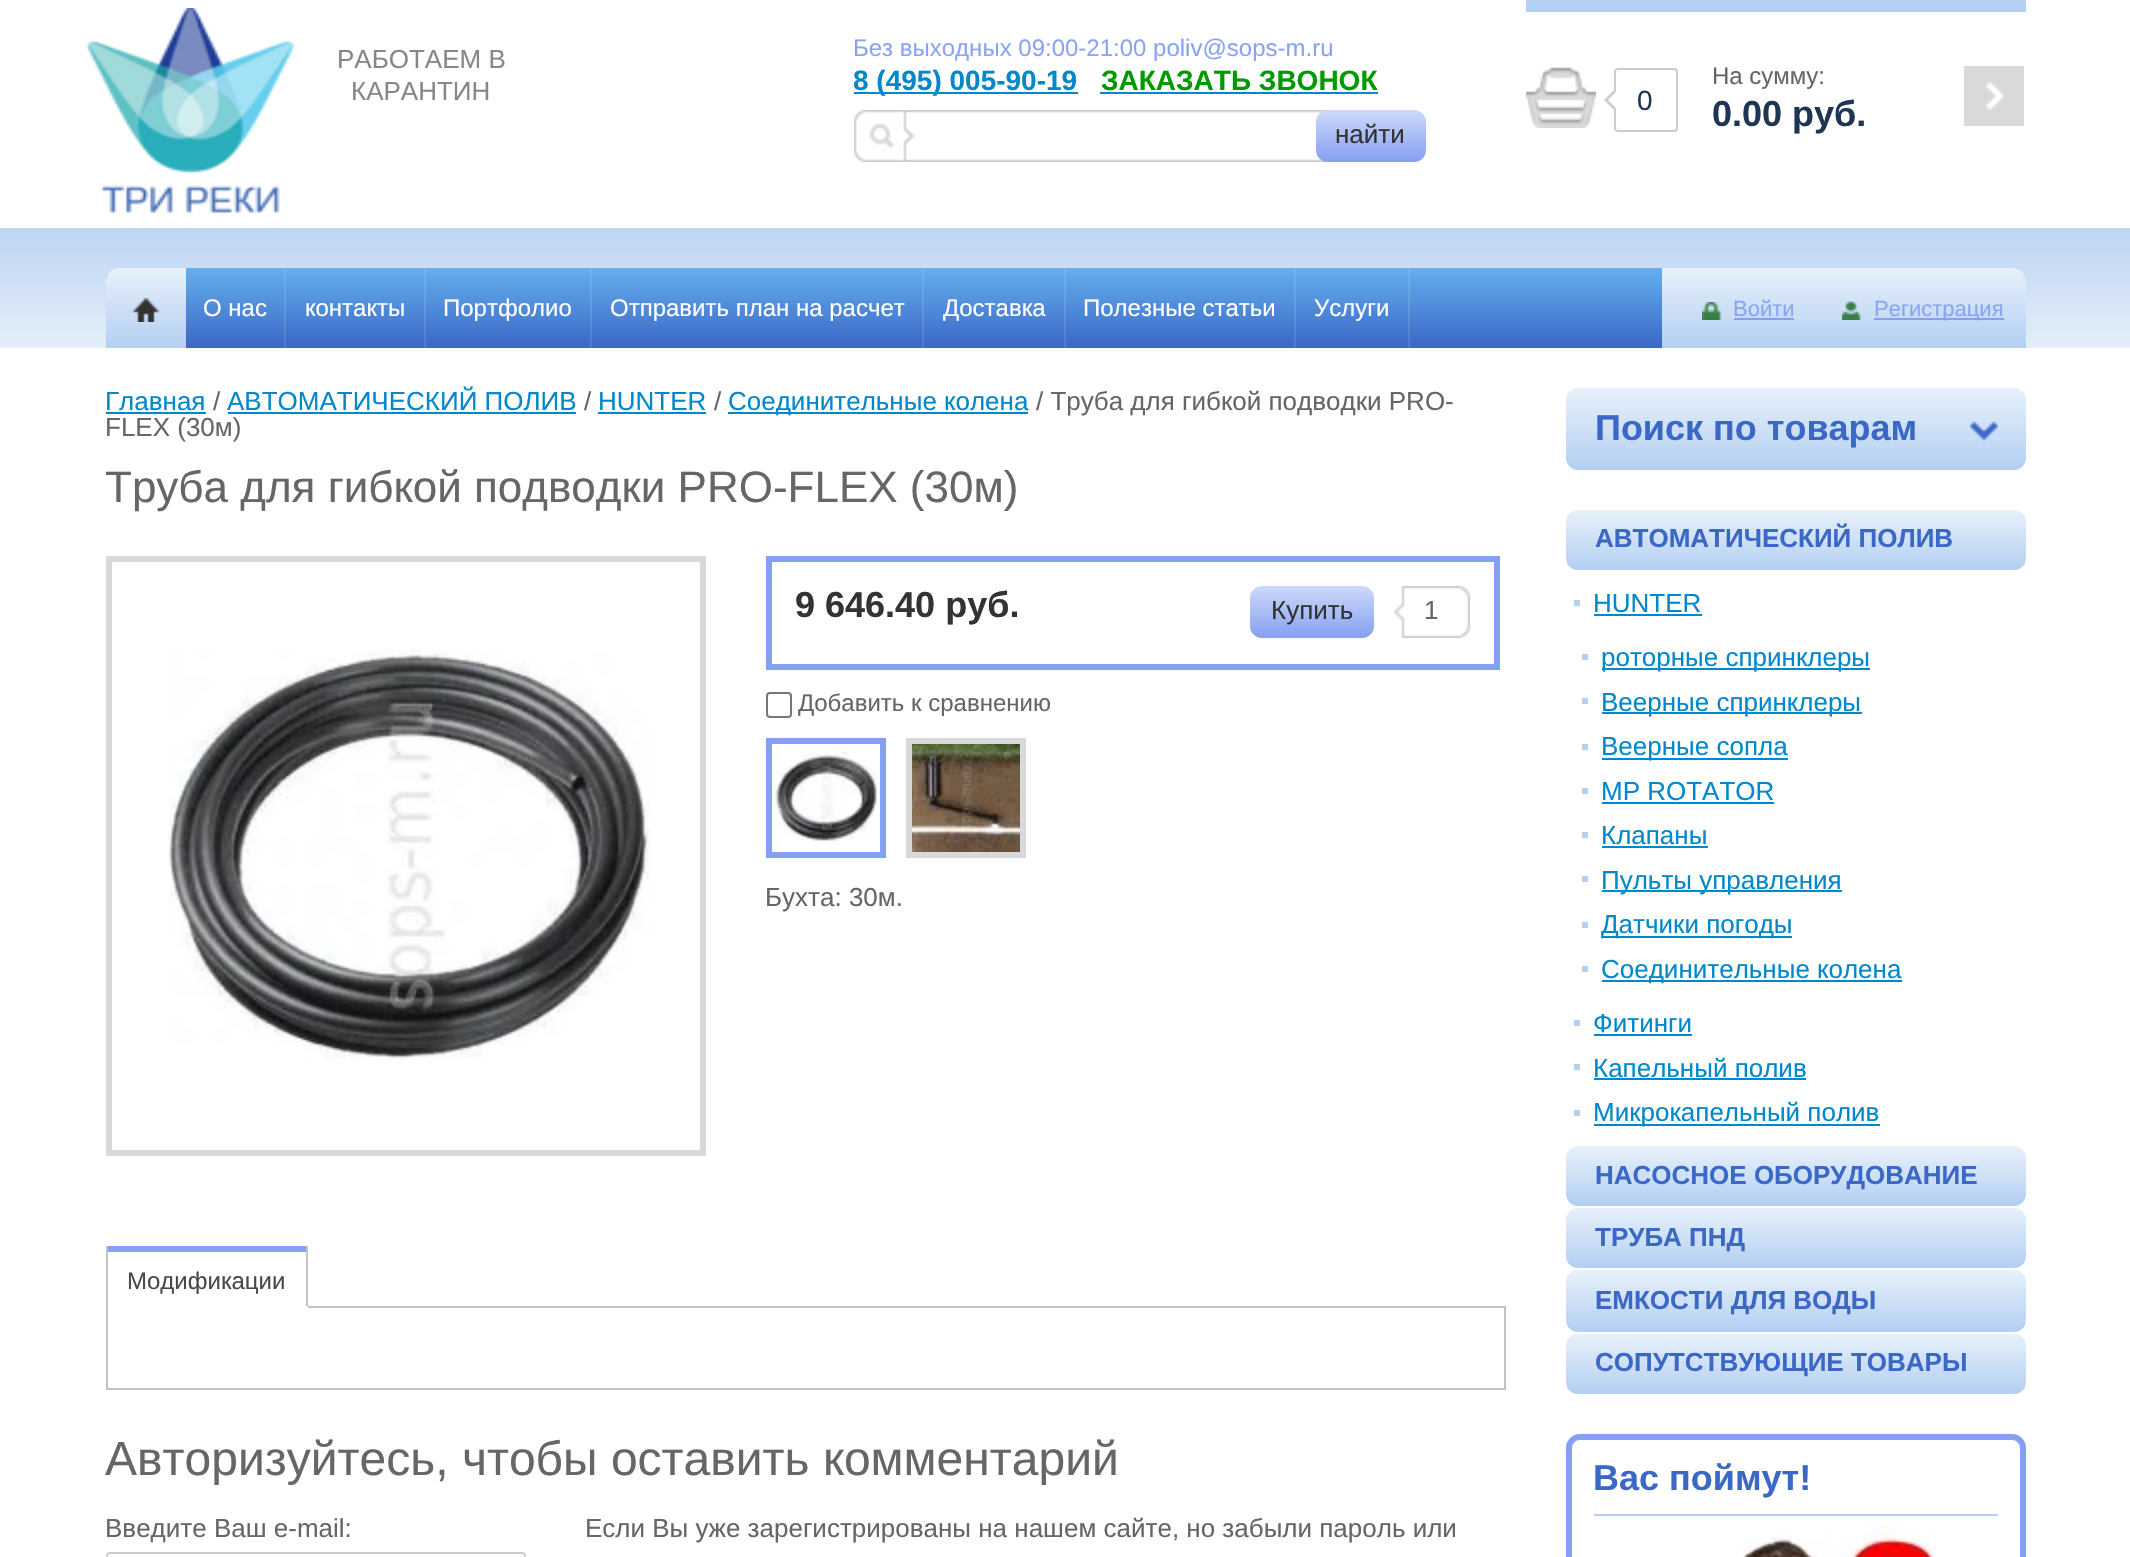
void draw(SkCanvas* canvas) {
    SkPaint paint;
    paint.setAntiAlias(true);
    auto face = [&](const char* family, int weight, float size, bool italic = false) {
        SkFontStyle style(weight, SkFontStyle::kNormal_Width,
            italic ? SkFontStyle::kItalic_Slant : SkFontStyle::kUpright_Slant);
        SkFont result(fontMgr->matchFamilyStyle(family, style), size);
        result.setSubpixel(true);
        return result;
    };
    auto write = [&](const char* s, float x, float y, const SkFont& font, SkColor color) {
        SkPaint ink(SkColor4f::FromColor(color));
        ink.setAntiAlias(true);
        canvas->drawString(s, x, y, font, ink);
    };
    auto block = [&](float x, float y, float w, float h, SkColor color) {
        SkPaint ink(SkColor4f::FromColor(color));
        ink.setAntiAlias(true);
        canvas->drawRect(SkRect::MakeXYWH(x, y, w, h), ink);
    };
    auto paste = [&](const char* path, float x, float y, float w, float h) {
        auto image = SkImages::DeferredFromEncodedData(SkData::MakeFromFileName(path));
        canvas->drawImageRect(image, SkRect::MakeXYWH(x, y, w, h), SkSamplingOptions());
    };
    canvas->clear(SK_ColorWHITE);
    paste("pic1.png", 86, 8, 209, 206);
    auto kFont1 = face("Liberation Sans", 400, 26);
    write("РАБОТАЕМ В", 337, 68, kFont1, SkColorSetRGB(135, 135, 135));
    write("КАРАНТИН", 351, 100, kFont1, SkColorSetRGB(135, 135, 135));
    auto kFont2 = face("Liberation Sans", 400, 24);
    write("Без выходных 09:00-21:00 poliv@sops-m.ru", 853, 56, kFont2, SkColorSetRGB(138, 164, 242));
    block(854, 92, 224, 2, SkColorSetRGB(0, 136, 204));
    auto kFont3 = face("Liberation Sans", 700, 28);
    write("8 (495) 005-90-19", 853, 90, kFont3, SkColorSetRGB(0, 136, 204));
    write("ЗАКАЗАТЬ ЗВОНОК", 1101, 90, kFont3, SkColorSetRGB(0, 153, 0));
    block(1100, 92, 278, 2, SkColorSetRGB(0, 136, 204));
    paste("pic2.png", 854, 110, 474, 52);
    {
        const SkColor colors[] = {SkColorSetRGB(206, 217, 250), SkColorSetRGB(133, 160, 242)};
        const float stops[] = {0, 1};
        const SkPoint ends[] = {{1371, 110}, {1371, 162}};
        paint.setShader(SkGradientShader::MakeLinear(ends, colors, stops, 2, SkTileMode::kClamp));
        paint.setAlpha(255);
    }
    canvas->drawRoundRect(SkRect::MakeXYWH(1316, 110, 110, 52), 12, 12, paint);
    write("найти", 1335, 143, kFont1, SkColorSetRGB(51, 51, 51));
    block(1526, 0, 500, 12, SkColorSetRGB(179, 207, 242));
    paste("pic3.png", 1526, 67, 70, 61);
    paint.setStyle(SkPaint::kStroke_Style);
    paint.setStrokeWidth(2);
    paint.setShader(nullptr);
    paint.setColor(SkColorSetRGB(204, 204, 204));
    canvas->drawRoundRect(SkRect::MakeXYWH(1615, 69, 62, 62), 3, 3, paint);
    paint.setStyle(SkPaint::kFill_Style);
    canvas->drawPath(SkPathBuilder().moveTo(1614, 90).lineTo(1614, 110).lineTo(1604, 100).close().detach(), paint);
    auto kFont4 = face("Liberation Sans", 400, 28);
    write("0", 1637, 110, kFont4, SkColorSetRGB(30, 54, 83));
    paint.setColor(SK_ColorWHITE);
    canvas->drawPath(SkPathBuilder().moveTo(1616, 92).lineTo(1616, 108).lineTo(1608, 100).close().detach(), paint);
    write("На сумму:", 1712, 84, kFont2, SkColorSetRGB(102, 102, 102));
    auto kFont5 = face("Liberation Sans", 700, 36);
    write("0.00 руб.", 1712, 126, kFont5, SkColorSetRGB(30, 54, 83));
    block(1964, 66, 60, 60, SkColorSetRGB(217, 217, 217));
    paste("pic4.png", 1986, 81, 19, 29);
    {
        const SkColor colors[] = {SkColorSetRGB(189, 213, 242), SkColorSetRGB(228, 238, 250)};
        const float stops[] = {0, 1};
        const SkPoint ends[] = {{1065, 228}, {1065, 348}};
        paint.setShader(SkGradientShader::MakeLinear(ends, colors, stops, 2, SkTileMode::kClamp));
        paint.setAlpha(255);
    }
    canvas->drawRect(SkRect::MakeXYWH(0, 228, 2130, 120), paint);
    {
        const SkColor colors[] = {SkColorSetRGB(100, 175, 238), SkColorSetRGB(59, 103, 198)};
        const float stops[] = {0, 1};
        const SkPoint ends[] = {{1066, 268}, {1066, 348}};
        paint.setShader(SkGradientShader::MakeLinear(ends, colors, stops, 2, SkTileMode::kClamp));
        paint.setAlpha(255);
    }
    canvas->drawPath(SkPathBuilder().moveTo(118, 268).lineTo(2014, 268).cubicTo(2020.5f, 268, 2026, 273.5f, 2026, 280).lineTo(2026, 348).lineTo(106, 348).lineTo(106, 280).cubicTo(106, 273.5f, 111.5f, 268, 118, 268).close().detach(), paint);
    {
        const SkColor colors[] = {SkColorSetRGB(116, 183, 240), SkColorSetRGB(79, 118, 204)};
        const float stops[] = {0, 1};
        const SkPoint ends[] = {{1066, 268}, {1066, 348}};
        paint.setShader(SkGradientShader::MakeLinear(ends, colors, stops, 2, SkTileMode::kClamp));
        paint.setAlpha(255);
    }
    canvas->drawRect(SkRect::MakeXYWH(1408, 268, 2, 80), paint);
    canvas->drawRect(SkRect::MakeXYWH(1294, 268, 2, 80), paint);
    canvas->drawRect(SkRect::MakeXYWH(1064, 268, 2, 80), paint);
    canvas->drawRect(SkRect::MakeXYWH(922, 268, 2, 80), paint);
    canvas->drawRect(SkRect::MakeXYWH(590, 268, 2, 80), paint);
    canvas->drawRect(SkRect::MakeXYWH(424, 268, 2, 80), paint);
    canvas->drawRect(SkRect::MakeXYWH(284, 268, 2, 80), paint);
    {
        const SkColor colors[] = {SkColorSetRGB(232, 241, 251), SkColorSetRGB(179, 207, 242)};
        const float stops[] = {0, 1};
        const SkPoint ends[] = {{146, 268}, {146, 348}};
        paint.setShader(SkGradientShader::MakeLinear(ends, colors, stops, 2, SkTileMode::kClamp));
        paint.setAlpha(255);
    }
    canvas->drawPath(SkPathBuilder().moveTo(118, 268).lineTo(186, 268).lineTo(186, 348).lineTo(106, 348).lineTo(106, 280).cubicTo(106, 273.5f, 111.5f, 268, 118, 268).close().detach(), paint);
    paste("pic5.png", 132, 298, 28, 24);
    write("О нас", 203, 316, kFont2, SK_ColorWHITE);
    write("контакты", 305, 316, kFont2, SK_ColorWHITE);
    write("Портфолио", 443, 316, kFont2, SK_ColorWHITE);
    write("Отправить план на расчет", 610, 316, kFont2, SK_ColorWHITE);
    write("Доставка", 943, 316, kFont2, SK_ColorWHITE);
    write("Полезные статьи", 1083, 316, kFont2, SK_ColorWHITE);
    write("Услуги", 1314, 316, kFont2, SK_ColorWHITE);
    {
        const SkColor colors[] = {SkColorSetRGB(232, 241, 251), SkColorSetRGB(179, 207, 242)};
        const float stops[] = {0, 1};
        const SkPoint ends[] = {{1844, 268}, {1844, 348}};
        paint.setShader(SkGradientShader::MakeLinear(ends, colors, stops, 2, SkTileMode::kClamp));
        paint.setAlpha(255);
    }
    canvas->drawPath(SkPathBuilder().moveTo(1662, 268).lineTo(2014, 268).cubicTo(2020.5f, 268, 2026, 273.5f, 2026, 280).lineTo(2026, 348).lineTo(1662, 348).close().detach(), paint);
    paste("pic6.png", 1702, 302, 20, 18);
    auto kFont6 = face("Liberation Sans", 400, 22);
    write("Войти", 1733, 316, kFont6, SkColorSetRGB(138, 164, 242));
    block(1734, 318, 60, 2, SkColorSetRGB(133, 160, 242));
    paste("pic7.png", 1842, 301, 19, 19);
    block(1874, 318, 130, 2, SkColorSetRGB(133, 160, 242));
    write("Регистрация", 1874, 316, kFont6, SkColorSetRGB(138, 164, 242));
    write("Главная", 105, 410, kFont1, SkColorSetRGB(0, 136, 204));
    block(106, 412, 100, 2, SkColorSetRGB(0, 136, 204));
    write("/", 213, 410, kFont1, SkColorSetRGB(102, 102, 102));
    write("АВТОМАТИЧЕСКИЙ ПОЛИВ", 227, 410, kFont1, SkColorSetRGB(0, 136, 204));
    block(228, 412, 348, 2, SkColorSetRGB(0, 136, 204));
    write("/", 584, 410, kFont1, SkColorSetRGB(102, 102, 102));
    write("HUNTER", 598, 410, kFont1, SkColorSetRGB(0, 136, 204));
    block(598, 412, 108, 2, SkColorSetRGB(0, 136, 204));
    write("/", 714, 410, kFont1, SkColorSetRGB(102, 102, 102));
    block(728, 412, 300, 2, SkColorSetRGB(0, 136, 204));
    write("Соединительные колена", 728, 410, kFont1, SkColorSetRGB(0, 136, 204));
    write("/ Труба для гибкой подводки PRO-", 1036, 410, kFont1, SkColorSetRGB(102, 102, 102));
    write("FLEX (30м)", 105, 436, kFont1, SkColorSetRGB(102, 102, 102));
    auto kFont7 = face("Liberation Sans", 400, 44);
    write("Труба для гибкой подводки PRO-FLEX (30м)", 105, 502, kFont7, SkColorSetRGB(102, 102, 102));
    paint.setStyle(SkPaint::kStroke_Style);
    paint.setStrokeWidth(6);
    paint.setShader(nullptr);
    paint.setColor(SkColorSetRGB(217, 217, 217));
    canvas->drawRect(SkRect::MakeXYWH(109, 559, 594, 594), paint);
    paste("pic8.png", 169, 649, 482, 411);
    paint.setColor(SkColorSetRGB(133, 160, 242));
    canvas->drawRect(SkRect::MakeXYWH(769, 559, 728, 108), paint);
    write("9 646.40 руб.", 795, 617, kFont5, SkColorSetRGB(51, 51, 51));
    paint.setStyle(SkPaint::kFill_Style);
    {
        const SkColor colors[] = {SkColorSetRGB(206, 217, 250), SkColorSetRGB(133, 160, 242)};
        const float stops[] = {0, 1};
        const SkPoint ends[] = {{1312, 586}, {1312, 638}};
        paint.setShader(SkGradientShader::MakeLinear(ends, colors, stops, 2, SkTileMode::kClamp));
        paint.setAlpha(255);
    }
    canvas->drawRoundRect(SkRect::MakeXYWH(1250, 586, 124, 52), 12, 12, paint);
    write("Купить", 1271, 619, kFont1, SkColorSetRGB(51, 51, 51));
    paste("pic9.png", 1394, 586, 76, 52);
    write("1", 1424, 619, kFont1, SkColorSetRGB(102, 102, 102));
    paint.setStyle(SkPaint::kStroke_Style);
    paint.setStrokeWidth(2);
    paint.setShader(nullptr);
    paint.setColor(SkColorSetRGB(118, 118, 118));
    canvas->drawRoundRect(SkRect::MakeXYWH(767, 693, 24, 24), 3, 3, paint);
    write("Добавить к сравнению", 798, 711, kFont2, SkColorSetRGB(102, 102, 102));
    paint.setStrokeWidth(6);
    paint.setColor(SkColorSetRGB(133, 160, 242));
    canvas->drawRect(SkRect::MakeXYWH(769, 741, 114, 114), paint);
    paste("pic10.png", 772, 751, 108, 90);
    paint.setColor(SkColorSetRGB(217, 217, 217));
    canvas->drawRect(SkRect::MakeXYWH(909, 741, 114, 114), paint);
    paste("pic11.png", 912, 744, 108, 108);
    write("Бухта: 30м.", 765, 906, kFont1, SkColorSetRGB(102, 102, 102));
    paint.setStrokeWidth(2);
    paint.setColor(SkColorSetRGB(194, 194, 194));
    canvas->drawRect(SkRect::MakeXYWH(107, 1307, 1398, 82), paint);
    block(306, 1246, 2, 62, SkColorSetRGB(194, 194, 194));
    block(106, 1306, 202, 2, SK_ColorWHITE);
    block(106, 1246, 2, 62, SkColorSetRGB(194, 194, 194));
    block(108, 1246, 198, 6, SkColorSetRGB(133, 160, 242));
    write("Модификации", 127, 1289, kFont2, SkColorSetRGB(73, 73, 73));
    auto kFont8 = face("Liberation Sans", 400, 48);
    write("Авторизуйтесь, чтобы оставить комментарий", 105, 1475, kFont8, SkColorSetRGB(102, 102, 102));
    write("Введите Ваш e-mail:", 105, 1537, kFont1, SkColorSetRGB(102, 102, 102));
    paint.setColor(SkColorSetRGB(204, 204, 204));
    canvas->drawRoundRect(SkRect::MakeXYWH(107, 1553, 418, 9), 3, 3, paint);
    write("Если Вы уже зарегистрированы на нашем сайте, но забыли пароль или", 585, 1537, kFont1, SkColorSetRGB(102, 102, 102));
    paint.setStyle(SkPaint::kFill_Style);
    {
        const SkColor colors[] = {SkColorSetRGB(232, 241, 251), SkColorSetRGB(179, 207, 242)};
        const float stops[] = {0, 1};
        const SkPoint ends[] = {{1796, 388}, {1796, 470}};
        paint.setShader(SkGradientShader::MakeLinear(ends, colors, stops, 2, SkTileMode::kClamp));
        paint.setAlpha(255);
    }
    canvas->drawRoundRect(SkRect::MakeXYWH(1566, 388, 460, 82), 12, 12, paint);
    write("Поиск по товарам", 1595, 440, kFont5, SkColorSetRGB(59, 103, 198));
    paste("pic12.png", 1970, 421, 28, 20);
    {
        const SkColor colors[] = {SkColorSetRGB(232, 241, 251), SkColorSetRGB(179, 207, 242)};
        const float stops[] = {0, 1};
        const SkPoint ends[] = {{1796, 510}, {1796, 570}};
        paint.setShader(SkGradientShader::MakeLinear(ends, colors, stops, 2, SkTileMode::kClamp));
        paint.setAlpha(255);
    }
    canvas->drawRoundRect(SkRect::MakeXYWH(1566, 510, 460, 60), 12, 12, paint);
    auto kFont9 = face("Liberation Sans", 700, 26);
    write("АВТОМАТИЧЕСКИЙ ПОЛИВ", 1595, 547, kFont9, SkColorSetRGB(59, 103, 198));
    block(1574, 600, 6, 6, SkColorSetRGB(179, 207, 242));
    write("HUNTER", 1593, 612, kFont1, SkColorSetRGB(0, 136, 204));
    block(1594, 614, 108, 2, SkColorSetRGB(0, 136, 204));
    block(1582, 654, 6, 6, SkColorSetRGB(179, 207, 242));
    block(1602, 668, 268, 2, SkColorSetRGB(0, 136, 204));
    write("роторные спринклеры", 1601, 666, kFont1, SkColorSetRGB(0, 136, 204));
    block(1582, 698, 6, 6, SkColorSetRGB(179, 207, 242));
    block(1602, 712, 260, 2, SkColorSetRGB(0, 136, 204));
    write("Веерные спринклеры", 1601, 711, kFont1, SkColorSetRGB(0, 136, 204));
    block(1582, 744, 6, 6, SkColorSetRGB(179, 207, 242));
    block(1602, 758, 186, 2, SkColorSetRGB(0, 136, 204));
    write("Веерные сопла", 1601, 755, kFont1, SkColorSetRGB(0, 136, 204));
    block(1582, 788, 6, 6, SkColorSetRGB(179, 207, 242));
    write("MP ROTATOR", 1601, 800, kFont1, SkColorSetRGB(0, 136, 204));
    block(1602, 802, 172, 2, SkColorSetRGB(0, 136, 204));
    block(1582, 832, 6, 6, SkColorSetRGB(179, 207, 242));
    write("Клапаны", 1601, 844, kFont1, SkColorSetRGB(0, 136, 204));
    block(1602, 846, 106, 2, SkColorSetRGB(0, 136, 204));
    block(1582, 876, 6, 6, SkColorSetRGB(179, 207, 242));
    block(1602, 890, 240, 2, SkColorSetRGB(0, 136, 204));
    write("Пульты управления", 1601, 889, kFont1, SkColorSetRGB(0, 136, 204));
    block(1582, 922, 6, 6, SkColorSetRGB(179, 207, 242));
    block(1602, 936, 190, 2, SkColorSetRGB(0, 136, 204));
    write("Датчики погоды", 1601, 933, kFont1, SkColorSetRGB(0, 136, 204));
    block(1582, 966, 6, 6, SkColorSetRGB(179, 207, 242));
    block(1602, 980, 300, 2, SkColorSetRGB(0, 136, 204));
    write("Соединительные колена", 1601, 978, kFont1, SkColorSetRGB(0, 136, 204));
    block(1574, 1020, 6, 6, SkColorSetRGB(179, 207, 242));
    write("Фитинги", 1593, 1032, kFont1, SkColorSetRGB(0, 136, 204));
    block(1594, 1034, 98, 2, SkColorSetRGB(0, 136, 204));
    block(1574, 1064, 6, 6, SkColorSetRGB(179, 207, 242));
    write("Капельный полив", 1593, 1077, kFont1, SkColorSetRGB(0, 136, 204));
    block(1594, 1078, 212, 2, SkColorSetRGB(0, 136, 204));
    block(1574, 1110, 6, 6, SkColorSetRGB(179, 207, 242));
    block(1594, 1124, 286, 2, SkColorSetRGB(0, 136, 204));
    write("Микрокапельный полив", 1593, 1121, kFont1, SkColorSetRGB(0, 136, 204));
    {
        const SkColor colors[] = {SkColorSetRGB(232, 241, 251), SkColorSetRGB(179, 207, 242)};
        const float stops[] = {0, 1};
        const SkPoint ends[] = {{1796, 1146}, {1796, 1206}};
        paint.setShader(SkGradientShader::MakeLinear(ends, colors, stops, 2, SkTileMode::kClamp));
        paint.setAlpha(255);
    }
    canvas->drawRoundRect(SkRect::MakeXYWH(1566, 1146, 460, 60), 12, 12, paint);
    write("НАСОСНОЕ ОБОРУДОВАНИЕ", 1595, 1184, kFont9, SkColorSetRGB(59, 103, 198));
    {
        const SkColor colors[] = {SkColorSetRGB(232, 241, 251), SkColorSetRGB(179, 207, 242)};
        const float stops[] = {0, 1};
        const SkPoint ends[] = {{1796, 1208}, {1796, 1268}};
        paint.setShader(SkGradientShader::MakeLinear(ends, colors, stops, 2, SkTileMode::kClamp));
        paint.setAlpha(255);
    }
    canvas->drawRoundRect(SkRect::MakeXYWH(1566, 1208, 460, 60), 12, 12, paint);
    write("ТРУБА ПНД", 1595, 1246, kFont9, SkColorSetRGB(59, 103, 198));
    {
        const SkColor colors[] = {SkColorSetRGB(232, 241, 251), SkColorSetRGB(179, 207, 242)};
        const float stops[] = {0, 1};
        const SkPoint ends[] = {{1796, 1270}, {1796, 1332}};
        paint.setShader(SkGradientShader::MakeLinear(ends, colors, stops, 2, SkTileMode::kClamp));
        paint.setAlpha(255);
    }
    canvas->drawRoundRect(SkRect::MakeXYWH(1566, 1270, 460, 62), 12, 12, paint);
    write("ЕМКОСТИ ДЛЯ ВОДЫ", 1595, 1309, kFont9, SkColorSetRGB(59, 103, 198));
    {
        const SkColor colors[] = {SkColorSetRGB(232, 241, 251), SkColorSetRGB(179, 207, 242)};
        const float stops[] = {0, 1};
        const SkPoint ends[] = {{1796, 1334}, {1796, 1394}};
        paint.setShader(SkGradientShader::MakeLinear(ends, colors, stops, 2, SkTileMode::kClamp));
        paint.setAlpha(255);
    }
    canvas->drawRoundRect(SkRect::MakeXYWH(1566, 1334, 460, 60), 12, 12, paint);
    write("СОПУТСТВУЮЩИЕ ТОВАРЫ", 1595, 1371, kFont9, SkColorSetRGB(59, 103, 198));
    paint.setStyle(SkPaint::kStroke_Style);
    paint.setStrokeWidth(6);
    paint.setShader(nullptr);
    paint.setColor(SkColorSetRGB(133, 160, 242));
    canvas->drawRoundRect(SkRect::MakeXYWH(1569, 1437, 454, 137), 11, 11, paint);
    block(1594, 1514, 404, 2, SkColorSetRGB(179, 207, 242));
    write("Вас поймут!", 1593, 1490, kFont5, SkColorSetRGB(59, 103, 198));
    paste("pic13.png", 1741, 1526, 195, 31);
}
